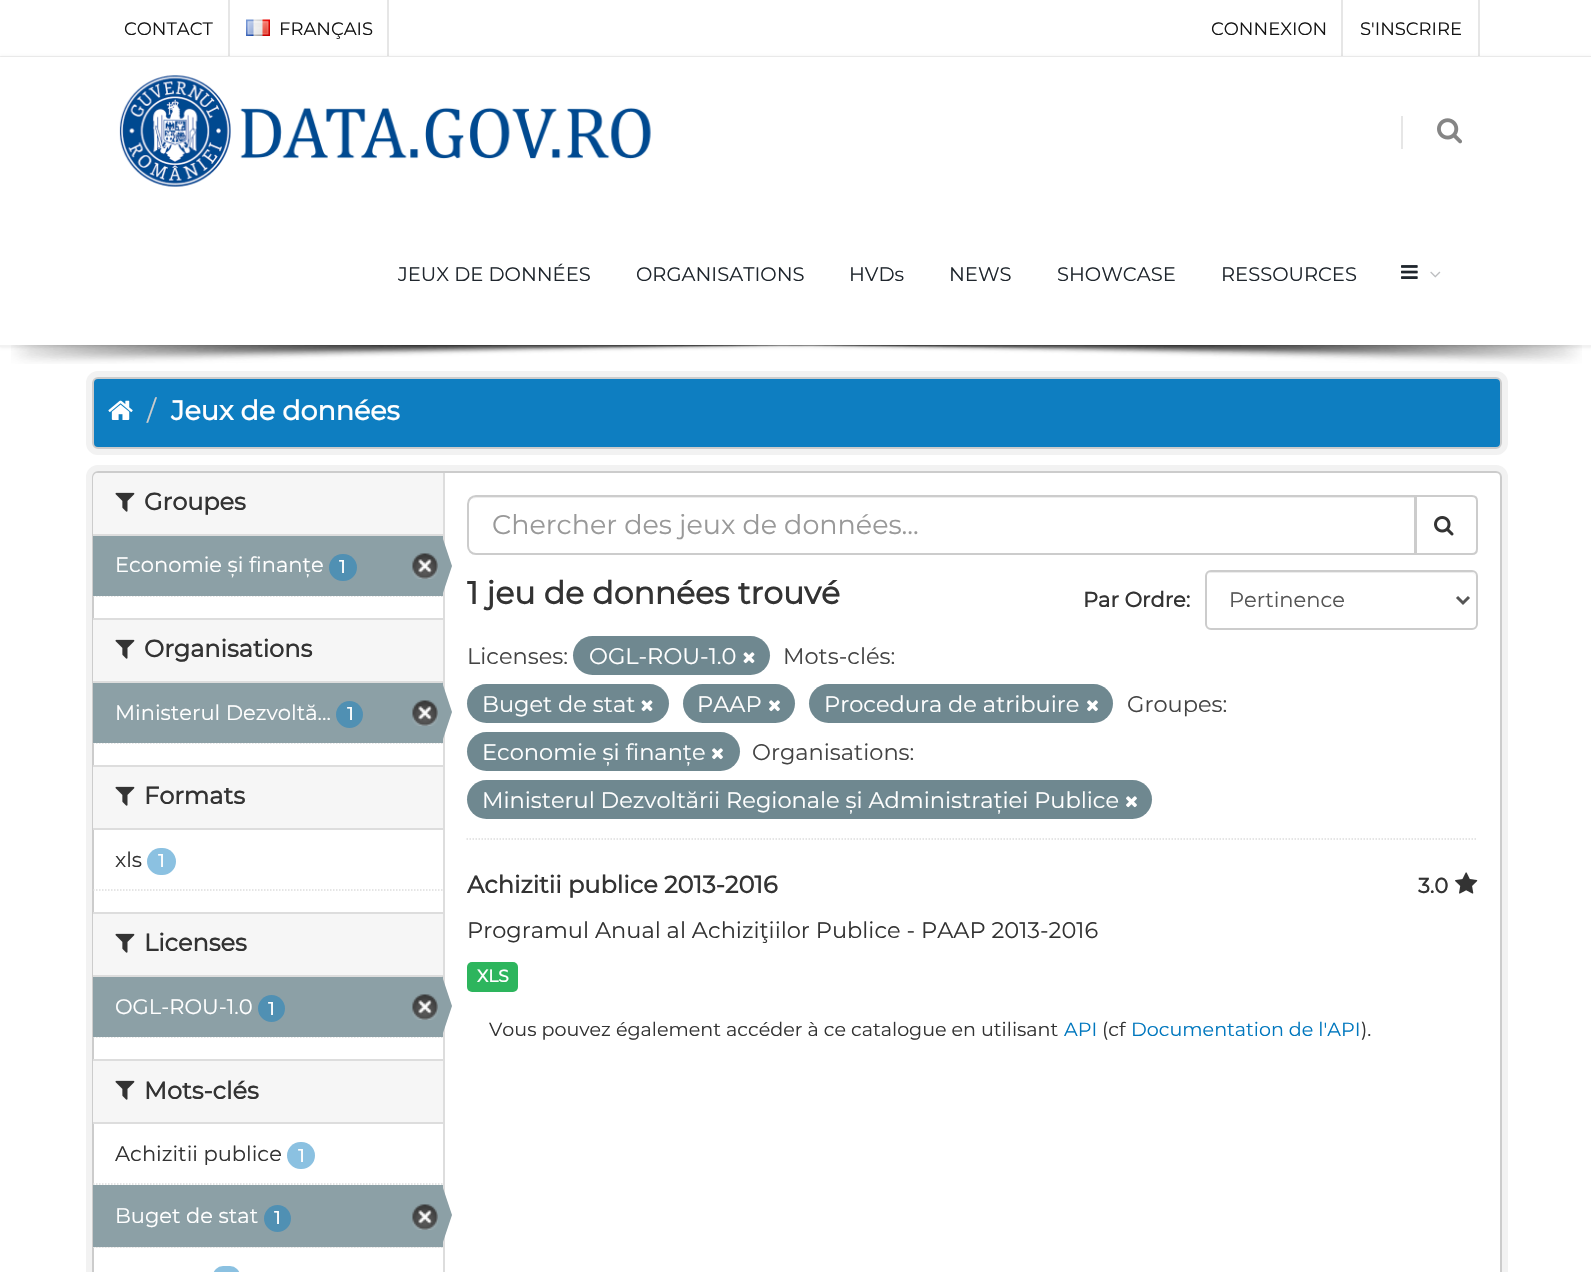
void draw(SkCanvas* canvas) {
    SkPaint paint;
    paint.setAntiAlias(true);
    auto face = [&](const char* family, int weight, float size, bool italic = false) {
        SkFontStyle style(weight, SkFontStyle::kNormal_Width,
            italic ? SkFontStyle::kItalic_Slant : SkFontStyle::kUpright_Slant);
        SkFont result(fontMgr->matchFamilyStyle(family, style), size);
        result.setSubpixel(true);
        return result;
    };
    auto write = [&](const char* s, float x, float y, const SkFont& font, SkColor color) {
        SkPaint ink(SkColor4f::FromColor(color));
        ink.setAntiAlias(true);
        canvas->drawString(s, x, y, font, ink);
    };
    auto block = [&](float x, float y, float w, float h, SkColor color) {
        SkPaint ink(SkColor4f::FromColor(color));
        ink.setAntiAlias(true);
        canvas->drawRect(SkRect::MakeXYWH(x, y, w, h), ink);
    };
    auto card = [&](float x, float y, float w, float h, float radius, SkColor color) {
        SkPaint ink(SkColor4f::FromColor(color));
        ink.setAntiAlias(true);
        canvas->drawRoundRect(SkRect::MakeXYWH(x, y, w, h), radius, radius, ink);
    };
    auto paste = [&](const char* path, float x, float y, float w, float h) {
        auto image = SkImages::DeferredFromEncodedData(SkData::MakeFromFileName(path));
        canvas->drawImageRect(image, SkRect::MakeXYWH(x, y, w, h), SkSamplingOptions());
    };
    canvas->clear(SK_ColorWHITE);
    block(0, 56, 1591, 1, SkColorSetRGB(242, 242, 242));
    block(228, 0, 2, 56, SkColorSetRGB(230, 230, 230));
    auto kFont1 = face("Montserrat", 100, 18);
    write("CONTACT", 124, 35, kFont1, SkColorSetRGB(21, 21, 21));
    block(387, 0, 2, 56, SkColorSetRGB(230, 230, 230));
    paste("pic1.png", 246, 19, 24, 17);
    write("FRANÇAIS", 279, 35, kFont1, SkColorSetRGB(21, 21, 21));
    block(1341, 0, 2, 56, SkColorSetRGB(230, 230, 230));
    write("CONNEXION", 1211, 35, kFont1, SkColorSetRGB(21, 21, 21));
    block(1478, 0, 2, 56, SkColorSetRGB(230, 230, 230));
    write("S'INSCRIRE", 1360, 35, kFont1, SkColorSetRGB(21, 21, 21));
    paint.setColor(SkColorSetARGB(26, 0, 0, 0));
    paint.setMaskFilter(SkMaskFilter::MakeBlur(kNormal_SkBlurStyle, 1.5f));
    canvas->drawRect(SkRect::MakeXYWH(0, 57, 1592, 290), paint);
    paint.setMaskFilter(nullptr);
    block(0, 57, 1591, 288, SK_ColorWHITE);
    block(0, 345, 1591, 2, SkColorSetRGB(242, 242, 242));
    paste("pic2.png", 119, 75, 532, 112);
    block(1401, 116, 2, 33, SkColorSetRGB(230, 230, 230));
    paste("pic3.png", 1437, 118, 25, 26);
    auto kFont2 = face("Montserrat", 100, 19.5f);
    write("JEUX DE DONNÉES", 398, 281, kFont2, SkColorSetRGB(31, 38, 45));
    write("ORGANISATIONS", 636, 281, kFont2, SkColorSetRGB(31, 38, 45));
    write("HVDs", 849, 281, kFont2, SkColorSetRGB(31, 38, 45));
    write("NEWS", 949, 281, kFont2, SkColorSetRGB(31, 38, 45));
    write("SHOWCASE", 1057, 281, kFont2, SkColorSetRGB(31, 38, 45));
    write("RESSOURCES", 1221, 281, kFont2, SkColorSetRGB(31, 38, 45));
    paste("pic4.png", 1401, 265, 17, 14);
    paste("pic5.png", 1430, 271, 11, 7);
    paste("pic6.png", 11, 345, 1571, 19);
    paint.setStyle(SkPaint::kStroke_Style);
    paint.setStrokeWidth(6);
    paint.setColor(SkColorSetRGB(242, 242, 242));
    canvas->drawRoundRect(SkRect::MakeXYWH(89, 374, 1416, 78), 9, 9, paint);
    paint.setStyle(SkPaint::kFill_Style);
    paint.setColor(SkColorSetRGB(14, 126, 193));
    canvas->drawRoundRect(SkRect::MakeXYWH(93, 378, 1408, 70), 5, 5, paint);
    paint.setStyle(SkPaint::kStroke_Style);
    paint.setStrokeWidth(2);
    paint.setColor(SkColorSetRGB(204, 204, 204));
    canvas->drawRoundRect(SkRect::MakeXYWH(93, 378, 1408, 70), 5, 5, paint);
    paste("pic7.png", 108, 400, 25, 20);
    auto kFont3 = face("Montserrat", 100, 27);
    write("/", 147, 420, kFont3, SkColorSetRGB(204, 204, 204));
    auto kFont4 = face("Montserrat", 700, 27);
    write("Jeux de données", 171, 420, kFont4, SK_ColorWHITE);
    paint.setStrokeWidth(6);
    paint.setColor(SkColorSetRGB(242, 242, 242));
    canvas->drawRoundRect(SkRect::MakeXYWH(89, 468, 1416, 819), 9, 9, paint);
    paint.setStyle(SkPaint::kFill_Style);
    paint.setColor(SK_ColorWHITE);
    canvas->drawRoundRect(SkRect::MakeXYWH(93, 472, 1408, 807), 5, 5, paint);
    paint.setStyle(SkPaint::kStroke_Style);
    paint.setStrokeWidth(2);
    paint.setColor(SkColorSetRGB(204, 204, 204));
    canvas->drawRoundRect(SkRect::MakeXYWH(93, 472, 1408, 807), 5, 5, paint);
    paint.setStyle(SkPaint::kFill_Style);
    paint.setColor(SkColorSetRGB(246, 246, 246));
    canvas->drawPath(SkPathBuilder().moveTo(98, 473).lineTo(443, 473).lineTo(443, 536).lineTo(93, 536).lineTo(93, 478).cubicTo(93, 475, 95, 473, 98, 473).close().detach(), paint);
    block(93, 534, 350, 2, SkColorSetRGB(221, 221, 221));
    paste("pic8.png", 115, 492, 20, 20);
    auto kFont5 = face("Montserrat", 700, 24);
    write("Groupes", 144, 510, kFont5, SkColorSetRGB(51, 51, 51));
    paint.setStyle(SkPaint::kStroke_Style);
    paint.setStrokeWidth(1.5f);
    paint.setColor(SkColorSetRGB(221, 221, 221));
    paint.setPathEffect(SkDashPathEffect::Make({{1.5f, 1.5f}}, 0));
    canvas->drawPath(SkPathBuilder().moveTo(93, 596).lineTo(442.5f, 596).detach(), paint);
    paint.setPathEffect(nullptr);
    block(93, 536, 350, 60, SkColorSetRGB(140, 160, 166));
    auto kFont6 = face("Montserrat", 100, 21);
    write("Economie și finanțe", 115, 572, kFont6, SK_ColorWHITE);
    card(329, 554, 28, 27, 13.5f, SkColorSetRGB(80, 144, 179));
    auto kFont7 = face("Montserrat", 700, 18);
    write("1", 339, 573, kFont7, SK_ColorWHITE);
    paste("pic9.png", 412, 553, 26, 26);
    block(443, 473, 2, 799, SkColorSetRGB(221, 221, 221));
    paint.setStyle(SkPaint::kFill_Style);
    paint.setColor(SkColorSetRGB(140, 160, 166));
    canvas->drawPath(SkPathBuilder().moveTo(442, 596).lineTo(442, 536).lineTo(452, 566).close().detach(), paint);
    block(93, 620, 350, 61, SkColorSetRGB(246, 246, 246));
    block(93, 618, 350, 2, SkColorSetRGB(221, 221, 221));
    block(93, 681, 350, 2, SkColorSetRGB(221, 221, 221));
    paste("pic8.png", 115, 639, 20, 20);
    write("Organisations", 144, 657, kFont5, SkColorSetRGB(51, 51, 51));
    paint.setStyle(SkPaint::kStroke_Style);
    paint.setColor(SkColorSetRGB(221, 221, 221));
    paint.setPathEffect(SkDashPathEffect::Make({{1.5f, 1.5f}}, 0));
    canvas->drawPath(SkPathBuilder().moveTo(93, 743).lineTo(442.5f, 743).detach(), paint);
    paint.setPathEffect(nullptr);
    block(93, 683, 350, 60, SkColorSetRGB(140, 160, 166));
    write("Ministerul Dezvoltă...", 115, 720, kFont6, SK_ColorWHITE);
    paint.setStyle(SkPaint::kFill_Style);
    paint.setColor(SkColorSetRGB(80, 144, 179));
    canvas->drawCircle(349.5f, 714.5f, 13.5f, paint);
    write("1", 347, 720, kFont7, SK_ColorWHITE);
    paste("pic9.png", 412, 700, 26, 26);
    paint.setColor(SkColorSetRGB(140, 160, 166));
    canvas->drawPath(SkPathBuilder().moveTo(442, 742).lineTo(442, 682).lineTo(452, 712).close().detach(), paint);
    block(93, 767, 350, 61, SkColorSetRGB(246, 246, 246));
    block(93, 765, 350, 2, SkColorSetRGB(221, 221, 221));
    block(93, 828, 350, 2, SkColorSetRGB(221, 221, 221));
    paste("pic8.png", 115, 786, 20, 20);
    write("Formats", 144, 804, kFont5, SkColorSetRGB(51, 51, 51));
    write("xls", 115, 867, kFont6, SkColorSetRGB(51, 51, 51));
    card(147, 848, 29, 27, 13.5f, SkColorSetRGB(139, 193, 225));
    write("1", 158, 867, kFont7, SK_ColorWHITE);
    paint.setStyle(SkPaint::kStroke_Style);
    paint.setColor(SkColorSetRGB(221, 221, 221));
    paint.setPathEffect(SkDashPathEffect::Make({{1.5f, 1.5f}}, 0));
    canvas->drawPath(SkPathBuilder().moveTo(93, 890).lineTo(442.5f, 890).detach(), paint);
    paint.setPathEffect(nullptr);
    block(93, 914, 350, 61, SkColorSetRGB(246, 246, 246));
    block(93, 912, 350, 2, SkColorSetRGB(221, 221, 221));
    block(93, 975, 350, 2, SkColorSetRGB(221, 221, 221));
    paste("pic8.png", 115, 933, 20, 20);
    write("Licenses", 144, 951, kFont5, SkColorSetRGB(51, 51, 51));
    paint.setPathEffect(SkDashPathEffect::Make({{1.5f, 1.5f}}, 0));
    canvas->drawPath(SkPathBuilder().moveTo(93, 1037).lineTo(442.5f, 1037).detach(), paint);
    paint.setPathEffect(nullptr);
    block(93, 977, 350, 60, SkColorSetRGB(140, 160, 166));
    write("OGL-ROU-1.0", 115, 1014, kFont6, SK_ColorWHITE);
    paint.setStyle(SkPaint::kFill_Style);
    paint.setColor(SkColorSetRGB(80, 144, 179));
    canvas->drawCircle(271.5f, 1008.5f, 13.5f, paint);
    write("1", 268, 1015, kFont7, SK_ColorWHITE);
    paste("pic9.png", 412, 994, 26, 26);
    paint.setColor(SkColorSetRGB(140, 160, 166));
    canvas->drawPath(SkPathBuilder().moveTo(442, 1036).lineTo(442, 976).lineTo(452, 1006).close().detach(), paint);
    block(93, 1061, 350, 61, SkColorSetRGB(246, 246, 246));
    block(93, 1059, 350, 2, SkColorSetRGB(221, 221, 221));
    block(93, 1122, 350, 2, SkColorSetRGB(221, 221, 221));
    paste("pic8.png", 115, 1080, 20, 20);
    write("Mots-clés", 144, 1099, kFont5, SkColorSetRGB(51, 51, 51));
    paint.setStyle(SkPaint::kStroke_Style);
    paint.setColor(SkColorSetRGB(221, 221, 221));
    paint.setPathEffect(SkDashPathEffect::Make({{1.5f, 1.5f}}, 0));
    canvas->drawPath(SkPathBuilder().moveTo(93, 1184).lineTo(442.5f, 1184).detach(), paint);
    paint.setPathEffect(nullptr);
    write("Achizitii publice", 115, 1161, kFont6, SkColorSetRGB(51, 51, 51));
    card(287, 1142, 28, 27, 13.5f, SkColorSetRGB(139, 193, 225));
    write("1", 298, 1162, kFont7, SK_ColorWHITE);
    block(93, 1247, 350, 1, SkColorSetRGB(246, 246, 246));
    paint.setPathEffect(SkDashPathEffect::Make({{1.5f, 1.5f}}, 0));
    canvas->drawPath(SkPathBuilder().moveTo(93, 1247).lineTo(442.5f, 1247).detach(), paint);
    paint.setPathEffect(nullptr);
    block(93, 1185, 350, 62, SkColorSetRGB(140, 160, 166));
    write("Buget de stat", 115, 1223, kFont6, SK_ColorWHITE);
    paint.setStyle(SkPaint::kFill_Style);
    paint.setColor(SkColorSetRGB(80, 144, 179));
    canvas->drawCircle(277.5f, 1218.5f, 13.5f, paint);
    write("1", 274, 1224, kFont7, SK_ColorWHITE);
    paste("pic9.png", 412, 1204, 26, 26);
    paint.setColor(SkColorSetRGB(140, 160, 166));
    canvas->drawPath(SkPathBuilder().moveTo(442, 1245).lineTo(442, 1185).lineTo(452, 1215).close().detach(), paint);
    card(213, 1266, 27, 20, 13.5f, SkColorSetRGB(139, 193, 225));
    paint.setStyle(SkPaint::kStroke_Style);
    paint.setColor(SkColorSetRGB(221, 221, 221));
    paint.setPathEffect(SkDashPathEffect::Make({{1.5f, 1.5f}}, 0));
    canvas->drawPath(SkPathBuilder().moveTo(466.5f, 839).lineTo(1477.5f, 839).detach(), paint);
    paint.setPathEffect(nullptr);
    paint.setStyle(SkPaint::kFill_Style);
    paint.setColor(SkColorSetRGB(236, 236, 236));
    canvas->drawPath(SkPathBuilder().moveTo(476, 498).lineTo(1414, 498).lineTo(1414, 554).lineTo(1415, 554).lineTo(1415, 497).lineTo(476, 497).cubicTo(471, 497, 468, 501, 468, 506).cubicTo(468, 501, 471, 498, 476, 498).close().detach(), paint);
    paint.setStyle(SkPaint::kStroke_Style);
    paint.setStrokeWidth(2);
    paint.setColor(SkColorSetRGB(204, 204, 204));
    canvas->drawPath(SkPathBuilder().moveTo(476, 496).lineTo(1415, 496).lineTo(1415, 554).lineTo(476, 554).cubicTo(471.5f, 554, 468, 550.5f, 468, 546).lineTo(468, 504).cubicTo(468, 499.5f, 471.5f, 496, 476, 496).close().detach(), paint);
    write("Chercher des jeux de données...", 492, 534, kFont3, SkColorSetRGB(153, 153, 153));
    paint.setStyle(SkPaint::kFill_Style);
    paint.setColor(SK_ColorWHITE);
    canvas->drawPath(SkPathBuilder().moveTo(1416, 496).lineTo(1472, 496).cubicTo(1475, 496, 1477, 498, 1477, 501).lineTo(1477, 549).cubicTo(1477, 552, 1475, 554, 1472, 554).lineTo(1416, 554).close().detach(), paint);
    paint.setStyle(SkPaint::kStroke_Style);
    paint.setColor(SkColorSetRGB(204, 204, 204));
    canvas->drawPath(SkPathBuilder().moveTo(1416, 496).lineTo(1472, 496).cubicTo(1475, 496, 1477, 498, 1477, 501).lineTo(1477, 549).cubicTo(1477, 552, 1475, 554, 1472, 554).lineTo(1416, 554).close().detach(), paint);
    paste("pic10.png", 1434, 516, 20, 20);
    auto kFont8 = face("Montserrat", 700, 31.5f);
    write("1 jeu de données trouvé", 467, 604, kFont8, SkColorSetRGB(51, 51, 51));
    auto kFont9 = face("Montserrat", 700, 21);
    write("Par Ordre:", 1083, 607, kFont9, SkColorSetRGB(51, 51, 51));
    paint.setStyle(SkPaint::kFill_Style);
    paint.setColor(SkColorSetRGB(236, 236, 236));
    canvas->drawPath(SkPathBuilder().moveTo(1210, 573).lineTo(1472, 573).cubicTo(1474, 573, 1476, 575, 1476, 578).cubicTo(1476, 575, 1474, 572, 1471, 572).lineTo(1211, 572).cubicTo(1208, 572, 1206, 575, 1206, 578).cubicTo(1206, 575, 1208, 573, 1210, 573).close().detach(), paint);
    paint.setStyle(SkPaint::kStroke_Style);
    paint.setColor(SkColorSetRGB(204, 204, 204));
    canvas->drawRoundRect(SkRect::MakeXYWH(1206, 571, 271, 58), 5, 5, paint);
    paint.setStrokeWidth(3);
    paint.setColor(SkColorSetRGB(85, 85, 85));
    canvas->drawPath(SkPathBuilder().moveTo(1457, 597).lineTo(1463, 603).lineTo(1469, 597).detach(), paint);
    write("Pertinence", 1229, 607, kFont6, SkColorSetRGB(85, 85, 85));
    auto kFont10 = face("Montserrat", 100, 22.5f);
    write("Licenses:", 467, 664, kFont10, SkColorSetRGB(68, 68, 68));
    card(573, 636, 197, 39, 19.5f, SkColorSetRGB(111, 136, 144));
    write("OGL-ROU-1.0", 589, 664, kFont10, SK_ColorWHITE);
    paste("pic11.png", 743, 652, 12, 12);
    write("Mots-clés:", 783, 664, kFont10, SkColorSetRGB(68, 68, 68));
    card(467, 684, 202, 39, 19.5f, SkColorSetRGB(111, 136, 144));
    write("Buget de stat", 482, 712, kFont10, SK_ColorWHITE);
    paste("pic11.png", 641, 700, 12, 12);
    card(683, 684, 112, 39, 19.5f, SkColorSetRGB(111, 136, 144));
    write("PAAP", 697, 712, kFont10, SK_ColorWHITE);
    paste("pic12.png", 769, 700, 11, 12);
    card(809, 684, 304, 39, 19.5f, SkColorSetRGB(111, 136, 144));
    write("Procedura de atribuire", 824, 712, kFont10, SK_ColorWHITE);
    paste("pic12.png", 1087, 700, 11, 12);
    write("Groupes:", 1127, 712, kFont10, SkColorSetRGB(68, 68, 68));
    card(467, 732, 273, 39, 19.5f, SkColorSetRGB(111, 136, 144));
    write("Economie și finanțe", 482, 760, kFont10, SK_ColorWHITE);
    paste("pic12.png", 712, 748, 11, 12);
    write("Organisations:", 752, 760, kFont10, SkColorSetRGB(68, 68, 68));
    card(467, 780, 685, 39, 19.5f, SkColorSetRGB(111, 136, 144));
    write("Ministerul Dezvoltării Regionale și Administrației Publice", 482, 808, kFont10, SK_ColorWHITE);
    paste("pic12.png", 1126, 796, 11, 12);
    write("Achizitii publice 2013-2016", 467, 893, kFont5, SkColorSetRGB(51, 51, 51));
    write("3.0", 1418, 893, kFont9, SkColorSetRGB(51, 51, 51));
    paste("pic13.png", 1455, 872, 23, 22);
    write("Programul Anual al Achiziţiilor Publice - PAAP 2013-2016", 467, 938, kFont10, SkColorSetRGB(51, 51, 51));
    card(467, 962, 51, 30, 5, SkColorSetRGB(45, 181, 93));
    auto kFont11 = face("Montserrat", 700, 17);
    write("XLS", 477, 982, kFont11, SK_ColorWHITE);
    auto kFont12 = face("Montserrat", 100, 19.1f);
    write("Vous pouvez également accéder à ce catalogue en utilisant", 489, 1036, kFont12, SkColorSetRGB(51, 51, 51));
    write("API", 1064, 1036, kFont12, SkColorSetRGB(0, 119, 190));
    write("(cf", 1102, 1036, kFont12, SkColorSetRGB(51, 51, 51));
    write("Documentation de l'API", 1131, 1036, kFont12, SkColorSetRGB(0, 119, 190));
    write(").", 1361, 1036, kFont12, SkColorSetRGB(51, 51, 51));
}
